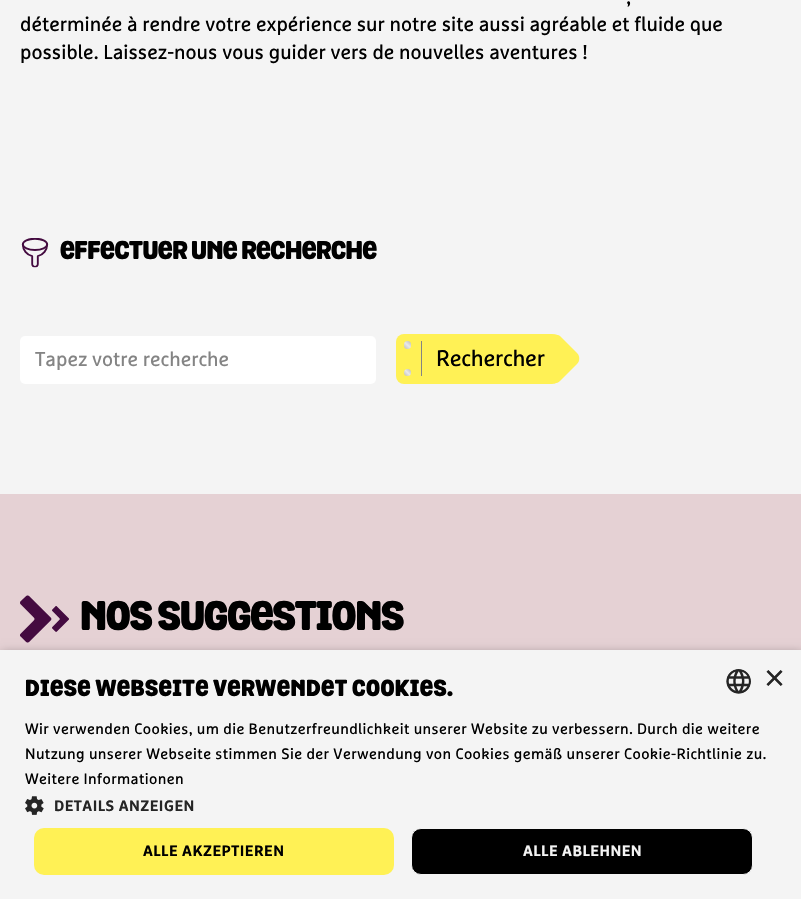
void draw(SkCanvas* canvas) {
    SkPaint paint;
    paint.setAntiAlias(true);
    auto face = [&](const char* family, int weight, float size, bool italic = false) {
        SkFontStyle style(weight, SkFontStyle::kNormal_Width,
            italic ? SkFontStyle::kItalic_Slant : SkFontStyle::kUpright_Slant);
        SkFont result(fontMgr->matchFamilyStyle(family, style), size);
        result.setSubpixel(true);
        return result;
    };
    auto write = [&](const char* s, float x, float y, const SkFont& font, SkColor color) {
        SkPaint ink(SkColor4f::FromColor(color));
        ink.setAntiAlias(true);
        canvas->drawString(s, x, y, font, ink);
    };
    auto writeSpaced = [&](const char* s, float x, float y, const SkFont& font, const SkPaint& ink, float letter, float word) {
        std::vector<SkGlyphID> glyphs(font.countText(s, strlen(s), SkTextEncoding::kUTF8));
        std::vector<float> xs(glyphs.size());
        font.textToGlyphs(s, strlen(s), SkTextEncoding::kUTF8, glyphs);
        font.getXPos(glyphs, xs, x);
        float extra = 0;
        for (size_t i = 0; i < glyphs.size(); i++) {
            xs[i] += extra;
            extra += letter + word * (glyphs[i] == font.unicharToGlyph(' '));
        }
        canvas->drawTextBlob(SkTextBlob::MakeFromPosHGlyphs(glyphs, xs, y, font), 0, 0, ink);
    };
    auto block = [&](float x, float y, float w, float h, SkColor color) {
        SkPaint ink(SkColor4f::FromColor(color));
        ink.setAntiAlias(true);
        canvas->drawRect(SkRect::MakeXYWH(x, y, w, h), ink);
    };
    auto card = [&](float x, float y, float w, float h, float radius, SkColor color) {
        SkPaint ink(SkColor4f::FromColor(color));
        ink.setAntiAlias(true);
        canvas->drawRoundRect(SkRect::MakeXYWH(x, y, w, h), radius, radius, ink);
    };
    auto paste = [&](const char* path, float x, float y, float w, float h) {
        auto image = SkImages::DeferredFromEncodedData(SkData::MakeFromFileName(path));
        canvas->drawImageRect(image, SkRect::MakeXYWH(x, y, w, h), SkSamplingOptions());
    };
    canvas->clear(SkColorSetRGB(244, 244, 244));
    auto kFont1 = face("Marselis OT", 400, 20);
    write(",", 626, 4, kFont1, SK_ColorBLACK);
    write("déterminée à rendre votre expérience sur notre site aussi agréable et fluide que", 20, 31, kFont1, SK_ColorBLACK);
    write("possible. Laissez-nous vous guider vers de nouvelles aventures !", 20, 59, kFont1, SK_ColorBLACK);
    paste("pic1.png", 21, 238, 28, 30);
    auto kFont2 = face("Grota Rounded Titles", 900, 25);
    paint.setColor(SK_ColorBLACK);
    writeSpaced("EFFECTUER UNE RECHERCHE", 60, 259, kFont2, paint, -0.5f, 0);
    card(20, 336, 356, 48, 5, SK_ColorWHITE);
    write("Tapez votre recherche", 35, 366, kFont1, SkColorSetRGB(132, 132, 132));
    card(396, 334, 164, 50, 8, SkColorSetRGB(255, 241, 85));
    {
        const SkColor colors[] = {SkColorSetRGB(187, 187, 187), SkColorSetRGB(232, 232, 232), SkColorSetRGB(187, 187, 187)};
        const float stops[] = {0, 0.5f, 1};
        const SkPoint ends[] = {{404, 349}, {411, 341}};
        paint.setShader(SkGradientShader::MakeLinear(ends, colors, stops, 3, SkTileMode::kClamp));
        paint.setAlpha(255);
    }
    canvas->drawRoundRect(SkRect::MakeXYWH(404, 341, 7, 8), 3.5f, 3.5f, paint);
    {
        const SkColor colors[] = {SkColorSetRGB(187, 187, 187), SkColorSetRGB(232, 232, 232), SkColorSetRGB(187, 187, 187)};
        const float stops[] = {0, 0.5f, 1};
        const SkPoint ends[] = {{404, 376}, {411, 369}};
        paint.setShader(SkGradientShader::MakeLinear(ends, colors, stops, 3, SkTileMode::kClamp));
        paint.setAlpha(255);
    }
    canvas->drawCircle(407.5f, 372.5f, 3.5f, paint);
    block(421, 341, 1, 35, SkColorSetRGB(132, 132, 132));
    paint.setShader(nullptr);
    paint.setColor(SkColorSetRGB(255, 241, 85));
    canvas->drawPath(SkPathBuilder().moveTo(560, 336).lineTo(577, 353).cubicTo(580, 356, 580, 361, 577, 364).lineTo(560, 381).cubicTo(557, 384, 552, 384, 549, 381).lineTo(532, 364).cubicTo(529, 361, 529, 356, 532, 353).lineTo(549, 336).cubicTo(552, 334, 557, 334, 560, 336).close().detach(), paint);
    auto kFont3 = face("Marselis OT", 400, 22.5f);
    paint.setColor(SK_ColorBLACK);
    writeSpaced("Rechercher", 436, 366, kFont3, paint, -0.25f, 0);
    block(0, 494, 801, 156, SkColorSetRGB(229, 209, 212));
    paste("pic2.png", 20, 595, 49, 48);
    auto kFont4 = face("Grota Rounded Titles", 900, 40);
    writeSpaced("NOS SUGGESTIONS", 80, 630, kFont4, paint, -1.25f, 0);
    paint.setColor(SkColorSetARGB(89, 0, 0, 0));
    paint.setMaskFilter(SkMaskFilter::MakeBlur(kNormal_SkBlurStyle, 5));
    canvas->drawRect(SkRect::MakeXYWH(1, 653, 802, 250), paint);
    paint.setMaskFilter(nullptr);
    block(0, 650, 801, 249, SkColorSetRGB(244, 244, 244));
    auto kFont5 = face("Grota Rounded Titles", 900, 22.5f);
    paint.setColor(SK_ColorBLACK);
    writeSpaced("DIESE WEBSEITE VERWENDET COOKIES.", 25, 696, kFont5, paint, 0.4f, 0);
    auto kFont6 = face("Marselis OT", 400, 15);
    writeSpaced("Wir verwenden Cookies, um die Benutzerfreundlichkeit unserer Website zu verbessern. Durch die weitere", 25, 734, kFont6, paint, 0.38f, 0);
    writeSpaced("Nutzung unserer Webseite stimmen Sie der Verwendung von Cookies gemäß unserer Cookie-Richtlinie zu.", 25, 759, kFont6, paint, 0.38f, 0);
    writeSpaced("Weitere Informationen", 25, 784, kFont6, paint, 0.38f, 0);
    paste("pic3.png", 25, 796, 19, 19);
    auto kFont7 = face("Marselis OT", 700, 15);
    paint.setColor(SkColorSetRGB(37, 37, 37));
    writeSpaced("DETAILS ANZEIGEN", 54, 811, kFont7, paint, 0.5f, 0);
    card(34, 828, 360, 47, 10, SkColorSetRGB(255, 241, 85));
    paint.setColor(SK_ColorBLACK);
    writeSpaced("ALLE AKZEPTIEREN", 143, 856, kFont7, paint, 0.5f, 0);
    canvas->drawRoundRect(SkRect::MakeXYWH(411.5f, 828.5f, 341, 46), 9.5f, 9.5f, paint);
    paint.setStyle(SkPaint::kStroke_Style);
    paint.setStrokeWidth(1);
    paint.setColor(SkColorSetRGB(244, 244, 244));
    canvas->drawRoundRect(SkRect::MakeXYWH(411.5f, 828.5f, 341, 46), 9.5f, 9.5f, paint);
    paint.setStyle(SkPaint::kFill_Style);
    writeSpaced("ALLE ABLEHNEN", 523, 856, kFont7, paint, 0.5f, 0);
    paste("pic4.png", 726, 669, 25, 25);
    auto kFont8 = face("Liberation Sans", 400, 36);
    write("×", 764, 690, kFont8, SkColorSetRGB(37, 37, 37));
}
